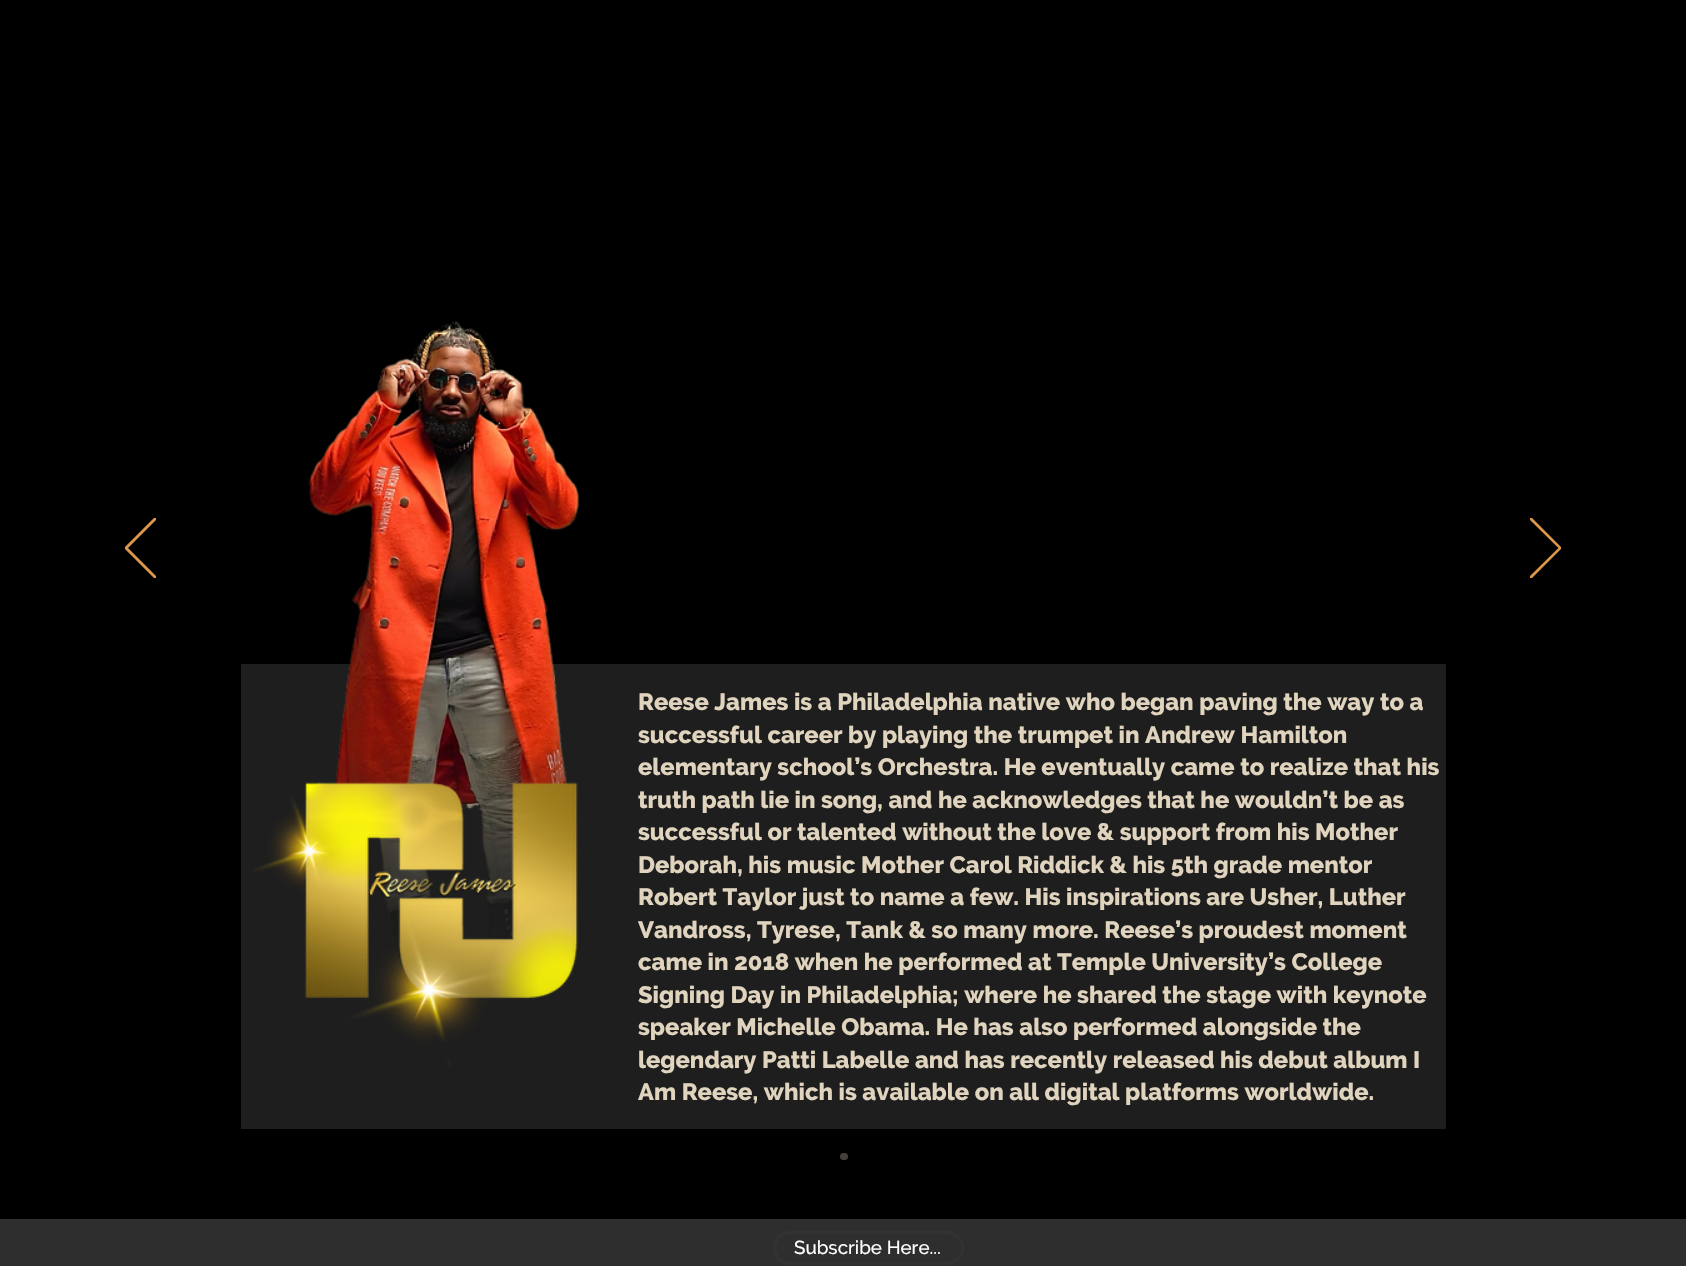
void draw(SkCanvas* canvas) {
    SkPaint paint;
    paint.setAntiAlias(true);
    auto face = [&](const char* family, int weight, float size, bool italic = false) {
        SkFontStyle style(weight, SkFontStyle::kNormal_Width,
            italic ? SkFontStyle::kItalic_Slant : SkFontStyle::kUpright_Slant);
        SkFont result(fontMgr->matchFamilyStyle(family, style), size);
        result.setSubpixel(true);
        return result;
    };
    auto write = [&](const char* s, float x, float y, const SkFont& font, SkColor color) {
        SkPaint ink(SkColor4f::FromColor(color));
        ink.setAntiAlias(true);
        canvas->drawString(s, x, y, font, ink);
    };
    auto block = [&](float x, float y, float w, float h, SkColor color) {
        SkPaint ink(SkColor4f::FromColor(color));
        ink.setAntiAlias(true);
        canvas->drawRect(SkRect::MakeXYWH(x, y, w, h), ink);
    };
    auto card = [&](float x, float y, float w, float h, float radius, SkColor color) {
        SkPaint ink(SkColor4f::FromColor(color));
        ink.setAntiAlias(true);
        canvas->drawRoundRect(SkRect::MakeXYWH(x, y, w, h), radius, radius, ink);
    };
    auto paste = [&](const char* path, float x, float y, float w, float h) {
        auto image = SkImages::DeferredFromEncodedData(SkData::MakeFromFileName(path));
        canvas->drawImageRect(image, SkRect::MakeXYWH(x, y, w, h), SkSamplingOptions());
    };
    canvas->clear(SK_ColorBLACK);
    canvas->save();
    canvas->clipRect(SkRect::MakeXYWH(125, 518, 31, 60));
    paint.setStyle(SkPaint::kStroke_Style);
    paint.setStrokeWidth(1.5f);
    paint.setColor(SkColorSetRGB(221, 151, 75));
    canvas->drawPath(SkPathBuilder().moveTo(155, 578).lineTo(125, 548).lineTo(155, 518).lineTo(156, 519).lineTo(127, 548).lineTo(156, 577).close().detach(), paint);
    canvas->restore();
    canvas->save();
    canvas->clipRect(SkRect::MakeXYWH(1530, 518, 31, 60));
    canvas->drawPath(SkPathBuilder().moveTo(1531, 578).lineTo(1561, 548).lineTo(1531, 518).lineTo(1530, 519).lineTo(1559.5f, 548).lineTo(1530, 577).close().detach(), paint);
    canvas->restore();
    block(241, 664, 1205, 465, SkColorSetRGB(30, 30, 30));
    paste("pic1.png", 308, 321, 271, 643);
    paste("pic2.png", 253, 782, 325, 285);
    auto kFont1 = face("Raleway", 800, 23.75f);
    write("Reese James is a Philadelphia native who began paving the way to a", 638, 710, kFont1, SkColorSetRGB(224, 212, 190));
    write("successful career by playing the trumpet in Andrew Hamilton", 638, 743, kFont1, SkColorSetRGB(224, 212, 190));
    write("elementary school’s Orchestra. He eventually came to realize that his", 638, 775, kFont1, SkColorSetRGB(224, 212, 190));
    write("truth path lie in song, and he acknowledges that he wouldn’t be as", 638, 808, kFont1, SkColorSetRGB(224, 212, 190));
    write("successful or talented without the love & support from his Mother", 638, 840, kFont1, SkColorSetRGB(224, 212, 190));
    write("Deborah, his music Mother Carol Riddick & his 5th grade mentor", 638, 873, kFont1, SkColorSetRGB(224, 212, 190));
    write("Robert Taylor just to name a few. His inspirations are Usher, Luther", 638, 905, kFont1, SkColorSetRGB(224, 212, 190));
    write("Vandross, Tyrese, Tank & so many more. Reese’s proudest moment", 638, 938, kFont1, SkColorSetRGB(224, 212, 190));
    write("came in 2018 when he performed at Temple University’s College", 638, 970, kFont1, SkColorSetRGB(224, 212, 190));
    write("Signing Day in Philadelphia; where he shared the stage with keynote", 638, 1003, kFont1, SkColorSetRGB(224, 212, 190));
    write("speaker Michelle Obama. He has also performed alongside the", 638, 1035, kFont1, SkColorSetRGB(224, 212, 190));
    write("legendary Patti Labelle and has recently released his debut album I", 638, 1068, kFont1, SkColorSetRGB(224, 212, 190));
    write("Am Reese, which is available on all digital platforms worldwide.", 638, 1100, kFont1, SkColorSetRGB(224, 212, 190));
    card(840, 1153, 8, 7, 3.5f, SkColorSetRGB(67, 64, 57));
    block(0, 1219, 1686, 47, SkColorSetRGB(47, 46, 46));
    paint.setStrokeWidth(3);
    paint.setColor(SkColorSetRGB(50, 50, 50));
    canvas->drawRoundRect(SkRect::MakeXYWH(774.5f, 1232.5f, 188, 31), 15.5f, 15.5f, paint);
    auto kFont2 = face("Raleway", 500, 18.75f);
    write("Subscribe Here...", 794, 1254, kFont2, SK_ColorWHITE);
}
